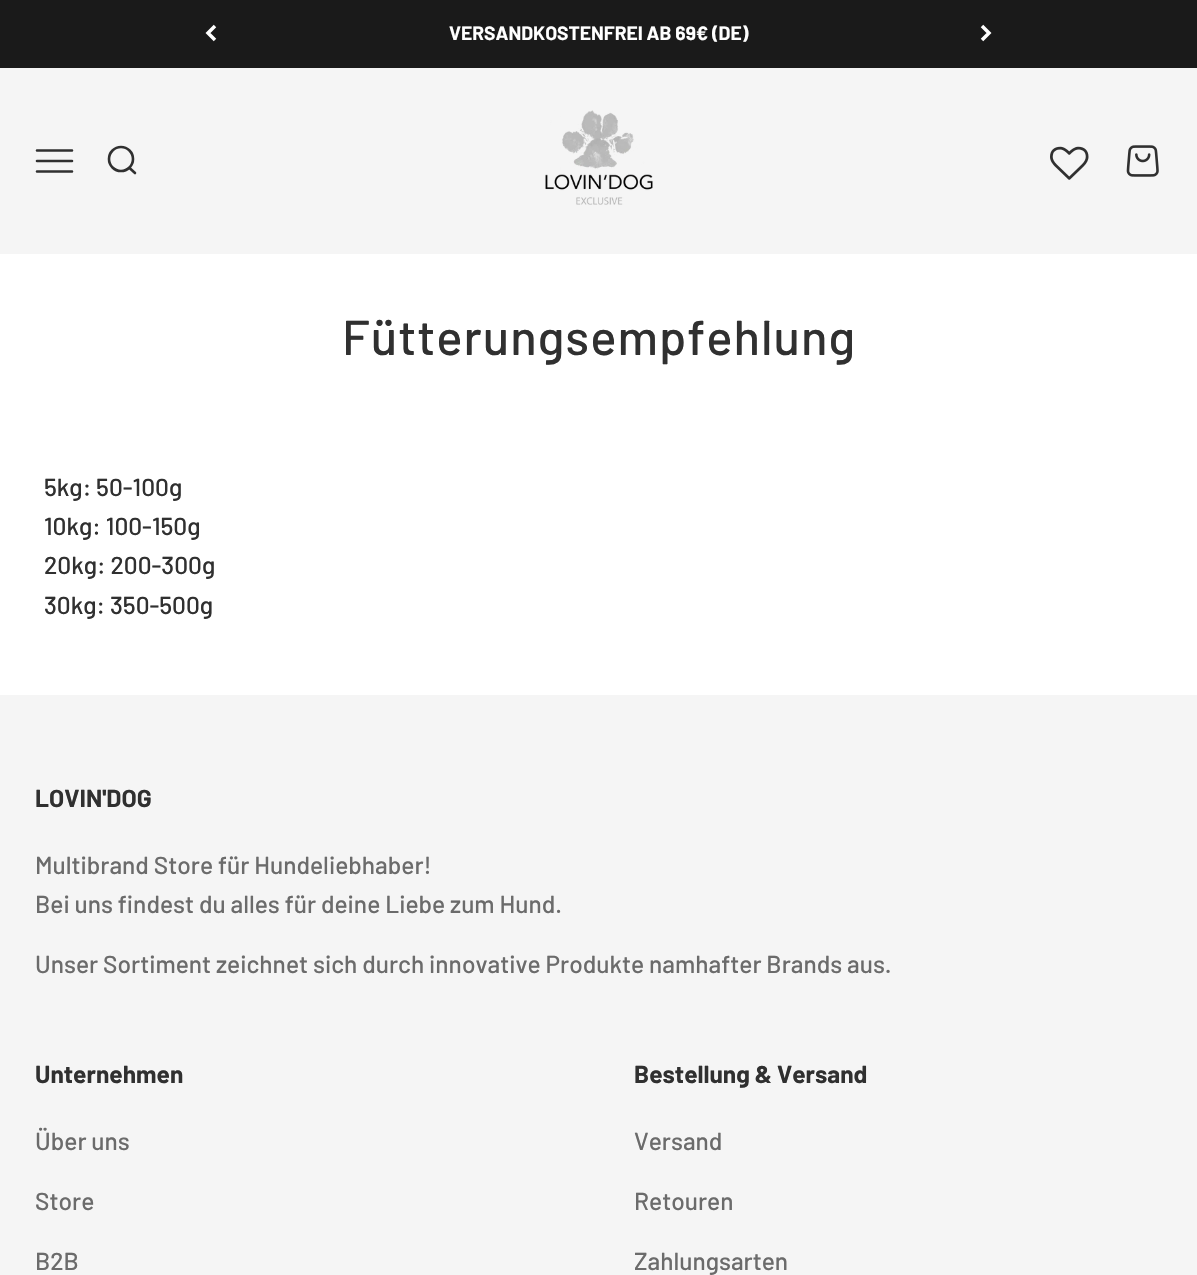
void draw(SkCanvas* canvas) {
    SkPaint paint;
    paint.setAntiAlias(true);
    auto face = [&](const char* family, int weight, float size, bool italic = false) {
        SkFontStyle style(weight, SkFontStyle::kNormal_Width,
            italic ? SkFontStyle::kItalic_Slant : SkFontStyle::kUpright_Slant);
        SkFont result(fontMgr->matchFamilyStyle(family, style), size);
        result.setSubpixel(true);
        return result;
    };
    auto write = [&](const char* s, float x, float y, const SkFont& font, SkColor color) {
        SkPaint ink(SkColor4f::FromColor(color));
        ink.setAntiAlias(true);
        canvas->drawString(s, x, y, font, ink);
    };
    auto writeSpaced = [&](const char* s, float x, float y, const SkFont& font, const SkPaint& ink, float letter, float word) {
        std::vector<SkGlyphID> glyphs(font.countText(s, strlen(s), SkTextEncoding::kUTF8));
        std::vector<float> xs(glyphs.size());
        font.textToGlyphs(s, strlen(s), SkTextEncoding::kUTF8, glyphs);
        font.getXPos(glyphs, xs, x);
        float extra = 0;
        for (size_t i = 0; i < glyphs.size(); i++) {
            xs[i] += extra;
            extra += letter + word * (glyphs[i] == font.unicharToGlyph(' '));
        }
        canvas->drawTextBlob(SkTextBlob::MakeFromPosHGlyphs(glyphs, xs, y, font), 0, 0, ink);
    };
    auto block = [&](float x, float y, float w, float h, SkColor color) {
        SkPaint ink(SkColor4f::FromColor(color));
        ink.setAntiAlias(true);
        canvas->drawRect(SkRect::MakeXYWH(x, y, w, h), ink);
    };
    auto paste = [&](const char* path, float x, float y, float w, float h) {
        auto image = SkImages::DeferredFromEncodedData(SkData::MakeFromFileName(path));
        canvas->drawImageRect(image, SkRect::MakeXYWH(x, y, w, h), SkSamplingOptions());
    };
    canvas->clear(SK_ColorWHITE);
    block(0, 0, 1197, 68, SkColorSetRGB(26, 26, 26));
    paint.setStyle(SkPaint::kStroke_Style);
    paint.setStrokeWidth(3.5f);
    paint.setColor(SK_ColorWHITE);
    canvas->drawPath(SkPathBuilder().moveTo(215, 26).lineTo(208, 33).lineTo(215, 40).detach(), paint);
    auto kFont1 = face("Barlow", 700, 19.25f);
    write("VERSANDKOSTENFREI AB 69€ (DE)", 449, 40, kFont1, SK_ColorWHITE);
    canvas->drawPath(SkPathBuilder().moveTo(982, 40).lineTo(989, 33).lineTo(982, 26).detach(), paint);
    block(0, 68, 1197, 186, SkColorSetRGB(245, 245, 245));
    paint.setStrokeWidth(2.6f);
    paint.setStrokeCap(SkPaint::kRound_Cap);
    paint.setColor(SkColorSetRGB(48, 48, 48));
    canvas->drawPath(SkPathBuilder().moveTo(37, 150.5f).lineTo(72, 150.5f).moveTo(37, 161).lineTo(72, 161).moveTo(37, 171.5f).lineTo(72, 171.5f).detach(), paint);
    paint.setStrokeCap(SkPaint::kButt_Cap);
    canvas->drawCircle(121, 159, 12, paint);
    paint.setStrokeCap(SkPaint::kRound_Cap);
    paint.setStrokeJoin(SkPaint::kRound_Join);
    canvas->drawPath(SkPathBuilder().moveTo(129.5f, 168).lineTo(135, 173).detach(), paint);
    paste("pic1.png", 545, 110, 108, 95);
    paste("pic2.png", 1050, 146, 39, 34);
    paste("pic3.png", 1126, 145, 33, 32);
    auto kFont2 = face("Barlow", 500, 49);
    paint.setStyle(SkPaint::kFill_Style);
    writeSpaced("Fütterungsempfehlung", 342, 355, kFont2, paint, 1, 0);
    auto kFont3 = face("Barlow", 500, 24.5f);
    write("5kg: 50-100g", 44, 496, kFont3, SkColorSetRGB(48, 48, 48));
    write("10kg: 100-150g", 44, 535, kFont3, SkColorSetRGB(48, 48, 48));
    write("20kg: 200-300g", 44, 574, kFont3, SkColorSetRGB(48, 48, 48));
    write("30kg: 350-500g", 44, 614, kFont3, SkColorSetRGB(48, 48, 48));
    block(0, 695, 1197, 580, SkColorSetRGB(245, 245, 245));
    auto kFont4 = face("Barlow", 700, 24.5f);
    write("LOVIN'DOG", 35, 807, kFont4, SkColorSetRGB(48, 48, 48));
    write("Multibrand Store für Hundeliebhaber!", 35, 874, kFont3, SkColorSetRGB(107, 107, 107));
    write("Bei uns findest du alles für deine Liebe zum Hund.", 35, 913, kFont3, SkColorSetRGB(107, 107, 107));
    write("Unser Sortiment zeichnet sich durch innovative Produkte namhafter Brands aus.", 35, 973, kFont3, SkColorSetRGB(107, 107, 107));
    write("Unternehmen", 35, 1083, kFont4, SkColorSetRGB(48, 48, 48));
    write("Über uns", 35, 1150, kFont3, SkColorSetRGB(107, 107, 107));
    write("Store", 35, 1210, kFont3, SkColorSetRGB(107, 107, 107));
    write("B2B", 35, 1270, kFont3, SkColorSetRGB(107, 107, 107));
    write("Bestellung & Versand", 634, 1083, kFont4, SkColorSetRGB(48, 48, 48));
    write("Versand", 634, 1150, kFont3, SkColorSetRGB(107, 107, 107));
    write("Retouren", 634, 1210, kFont3, SkColorSetRGB(107, 107, 107));
    write("Zahlungsarten", 634, 1270, kFont3, SkColorSetRGB(107, 107, 107));
}
